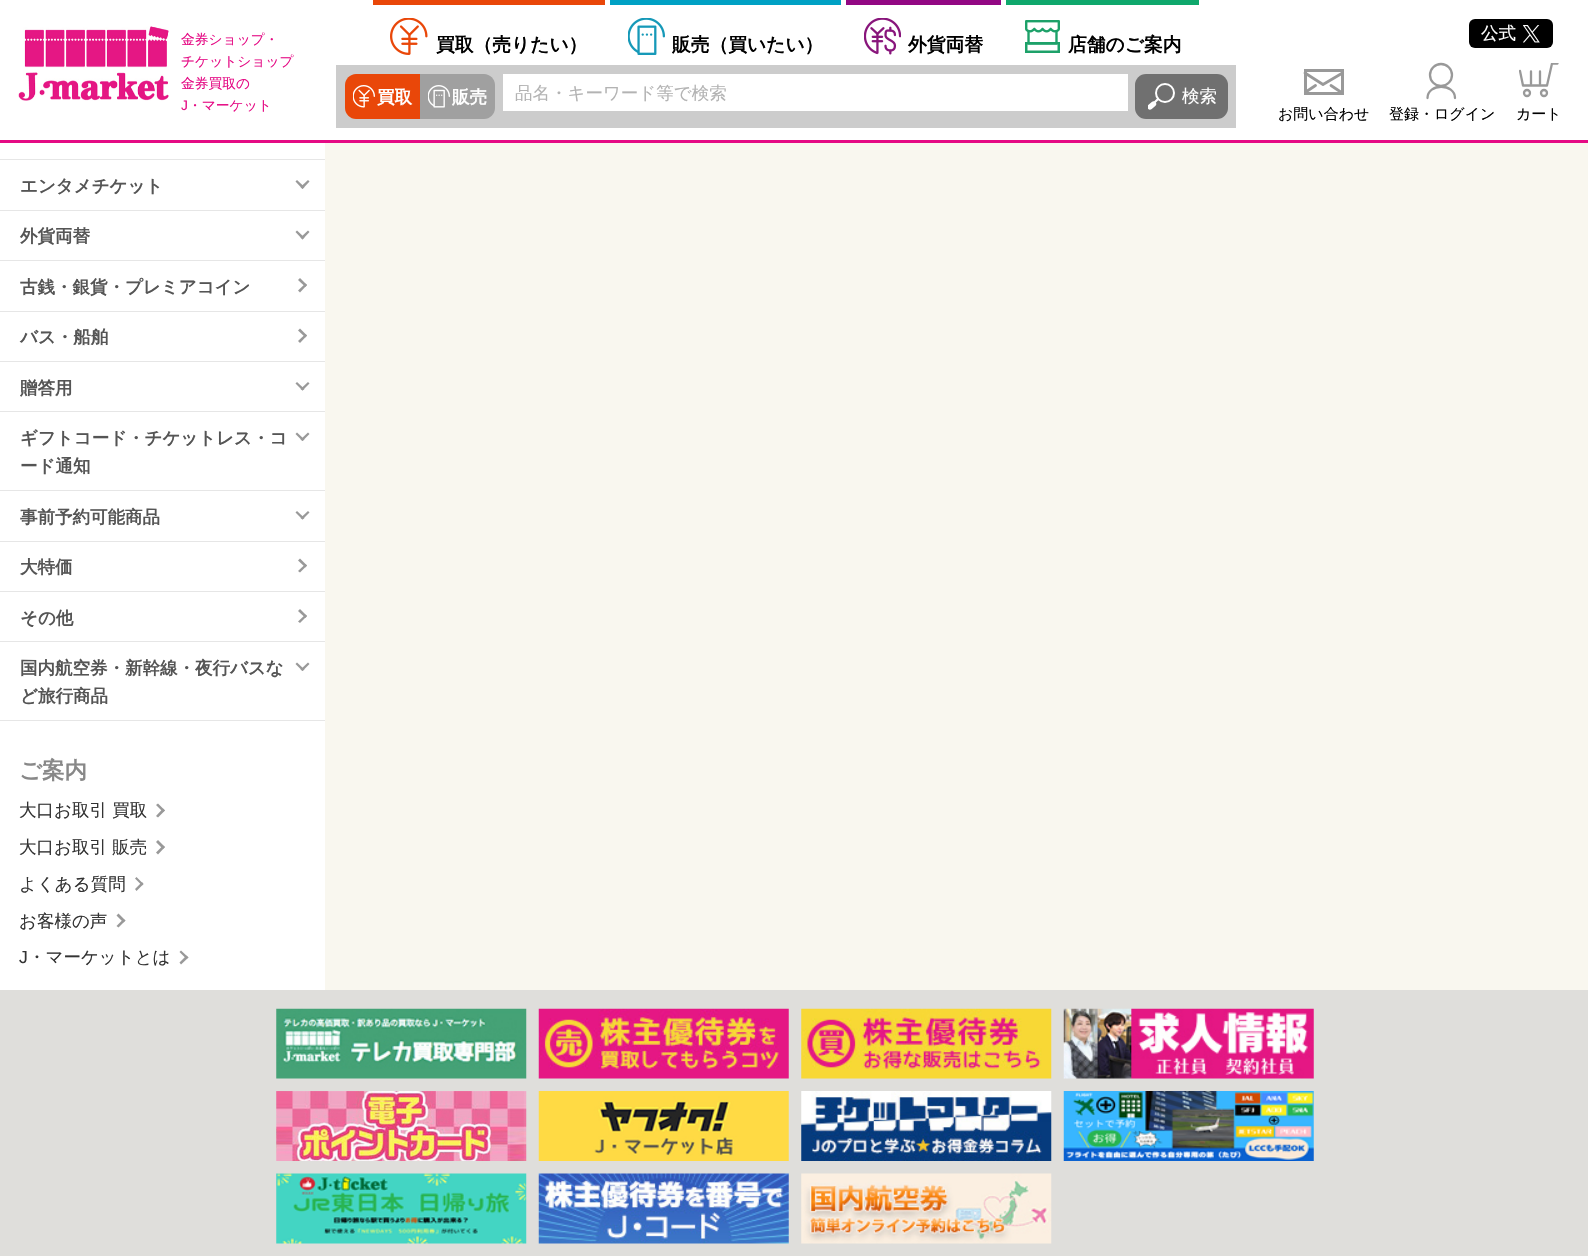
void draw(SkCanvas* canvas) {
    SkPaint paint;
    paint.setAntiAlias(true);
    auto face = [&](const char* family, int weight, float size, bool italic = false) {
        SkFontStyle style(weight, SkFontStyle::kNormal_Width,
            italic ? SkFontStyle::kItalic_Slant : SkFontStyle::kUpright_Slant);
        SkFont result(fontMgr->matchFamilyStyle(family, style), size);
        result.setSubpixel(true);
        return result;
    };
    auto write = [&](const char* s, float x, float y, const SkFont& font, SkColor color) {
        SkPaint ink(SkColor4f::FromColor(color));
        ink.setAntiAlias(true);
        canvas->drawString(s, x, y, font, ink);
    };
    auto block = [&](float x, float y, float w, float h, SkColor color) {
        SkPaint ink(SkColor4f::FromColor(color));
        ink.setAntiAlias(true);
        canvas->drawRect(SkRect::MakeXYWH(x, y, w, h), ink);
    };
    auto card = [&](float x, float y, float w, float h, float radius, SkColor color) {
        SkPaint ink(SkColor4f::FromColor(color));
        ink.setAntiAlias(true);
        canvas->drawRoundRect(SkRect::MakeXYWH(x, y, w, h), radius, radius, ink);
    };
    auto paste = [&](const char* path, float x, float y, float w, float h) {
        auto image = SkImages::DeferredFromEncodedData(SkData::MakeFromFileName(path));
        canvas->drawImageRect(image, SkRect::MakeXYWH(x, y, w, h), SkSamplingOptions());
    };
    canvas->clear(SK_ColorWHITE);
    card(1469, 19, 84, 29, 6, SK_ColorBLACK);
    auto kFont1 = face("WenQuanYi Zen Hei", 500, 17.5f);
    write("公式", 1481, 39, kFont1, SK_ColorWHITE);
    paste("pic1.png", 1523, 25, 17, 18);
    block(0, 159, 325, 1, SkColorSetRGB(230, 230, 230));
    block(0, 210, 325, 1, SkColorSetRGB(230, 230, 230));
    auto kFont2 = face("WenQuanYi Zen Hei", 700, 17.5f);
    write("エンタメチケット", 20, 192, kFont2, SkColorSetRGB(85, 85, 85));
    paint.setColor(SkColorSetRGB(153, 153, 153));
    canvas->drawPath(SkPathBuilder().moveTo(309.5f, 181.5f).lineTo(302.5f, 189).lineTo(300.5f, 187).lineTo(308, 180).close().detach(), paint);
    canvas->drawPath(SkPathBuilder().moveTo(304.5f, 187).lineTo(302.5f, 189).lineTo(295.5f, 181.5f).lineTo(297, 180).close().detach(), paint);
    block(0, 260, 325, 1, SkColorSetRGB(230, 230, 230));
    write("外貨両替", 20, 242, kFont2, SkColorSetRGB(85, 85, 85));
    canvas->drawPath(SkPathBuilder().moveTo(309.5f, 232).lineTo(302.5f, 239.5f).lineTo(300.5f, 237.5f).lineTo(308, 230.5f).close().detach(), paint);
    canvas->drawPath(SkPathBuilder().moveTo(304.5f, 237.5f).lineTo(302.5f, 239.5f).lineTo(295.5f, 232).lineTo(297, 230.5f).close().detach(), paint);
    block(0, 311, 325, 1, SkColorSetRGB(230, 230, 230));
    write("古銭・銀貨・プレミアコイン", 20, 293, kFont2, SkColorSetRGB(85, 85, 85));
    canvas->drawPath(SkPathBuilder().moveTo(300, 278).lineTo(307, 285).lineTo(305.5f, 287).lineTo(298, 280).close().detach(), paint);
    canvas->drawPath(SkPathBuilder().moveTo(305.5f, 283.5f).lineTo(307, 285).lineTo(300, 292.5f).lineTo(298, 290.5f).close().detach(), paint);
    block(0, 361, 325, 1, SkColorSetRGB(230, 230, 230));
    write("バス・船舶", 20, 343, kFont2, SkColorSetRGB(85, 85, 85));
    canvas->drawPath(SkPathBuilder().moveTo(300, 328.5f).lineTo(307, 335.5f).lineTo(305.5f, 337.5f).lineTo(298, 330.5f).close().detach(), paint);
    canvas->drawPath(SkPathBuilder().moveTo(305.5f, 334).lineTo(307, 335.5f).lineTo(300, 343).lineTo(298, 341).close().detach(), paint);
    block(0, 411, 325, 1, SkColorSetRGB(230, 230, 230));
    write("贈答用", 20, 394, kFont2, SkColorSetRGB(85, 85, 85));
    canvas->drawPath(SkPathBuilder().moveTo(309.5f, 383.5f).lineTo(302.5f, 390.5f).lineTo(300.5f, 389).lineTo(308, 382).close().detach(), paint);
    canvas->drawPath(SkPathBuilder().moveTo(304.5f, 389).lineTo(302.5f, 390.5f).lineTo(295.5f, 383.5f).lineTo(297, 382).close().detach(), paint);
    block(0, 490, 325, 1, SkColorSetRGB(230, 230, 230));
    write("ギフトコード・チケットレス・コ", 20, 444, kFont2, SkColorSetRGB(85, 85, 85));
    canvas->drawPath(SkPathBuilder().moveTo(309.5f, 434).lineTo(302.5f, 441).lineTo(300.5f, 439.5f).lineTo(308, 432.5f).close().detach(), paint);
    canvas->drawPath(SkPathBuilder().moveTo(304.5f, 439.5f).lineTo(302.5f, 441).lineTo(295.5f, 434).lineTo(297, 432.5f).close().detach(), paint);
    write("ード通知", 20, 472, kFont2, SkColorSetRGB(85, 85, 85));
    block(0, 541, 325, 1, SkColorSetRGB(230, 230, 230));
    write("事前予約可能商品", 20, 523, kFont2, SkColorSetRGB(85, 85, 85));
    canvas->drawPath(SkPathBuilder().moveTo(309.5f, 512.5f).lineTo(302.5f, 519.5f).lineTo(300.5f, 518).lineTo(308, 511).close().detach(), paint);
    canvas->drawPath(SkPathBuilder().moveTo(304.5f, 518).lineTo(302.5f, 519.5f).lineTo(295.5f, 512.5f).lineTo(297, 511).close().detach(), paint);
    block(0, 591, 325, 1, SkColorSetRGB(230, 230, 230));
    write("大特価", 20, 573, kFont2, SkColorSetRGB(85, 85, 85));
    canvas->drawPath(SkPathBuilder().moveTo(300, 558.5f).lineTo(307, 565.5f).lineTo(305.5f, 567.5f).lineTo(298, 560.5f).close().detach(), paint);
    canvas->drawPath(SkPathBuilder().moveTo(305.5f, 564).lineTo(307, 565.5f).lineTo(300, 572.5f).lineTo(298, 571).close().detach(), paint);
    block(0, 641, 325, 1, SkColorSetRGB(230, 230, 230));
    write("その他", 20, 624, kFont2, SkColorSetRGB(85, 85, 85));
    canvas->drawPath(SkPathBuilder().moveTo(300, 609).lineTo(307, 616).lineTo(305.5f, 618).lineTo(298, 611).close().detach(), paint);
    canvas->drawPath(SkPathBuilder().moveTo(305.5f, 614.5f).lineTo(307, 616).lineTo(300, 623).lineTo(298, 621.5f).close().detach(), paint);
    block(0, 720, 325, 1, SkColorSetRGB(230, 230, 230));
    write("国内航空券・新幹線・夜行バスな", 20, 674, kFont2, SkColorSetRGB(85, 85, 85));
    canvas->drawPath(SkPathBuilder().moveTo(309.5f, 664).lineTo(302.5f, 671).lineTo(300.5f, 669.5f).lineTo(308, 662.5f).close().detach(), paint);
    canvas->drawPath(SkPathBuilder().moveTo(304.5f, 669.5f).lineTo(302.5f, 671).lineTo(295.5f, 664).lineTo(297, 662.5f).close().detach(), paint);
    write("ど旅行商品", 20, 702, kFont2, SkColorSetRGB(85, 85, 85));
    auto kFont3 = face("WenQuanYi Zen Hei", 700, 22.5f);
    write("ご案内", 19, 778, kFont3, SkColorSetRGB(136, 136, 136));
    write("大口お取引 買取", 19, 816, kFont1, SkColorSetRGB(51, 51, 51));
    canvas->drawPath(SkPathBuilder().moveTo(158, 803.5f).lineTo(165, 810.5f).lineTo(163, 812).lineTo(156, 805).close().detach(), paint);
    canvas->drawPath(SkPathBuilder().moveTo(163, 808.5f).lineTo(165, 810.5f).lineTo(158, 817.5f).lineTo(156, 816).close().moveTo(158, 840).lineTo(165, 847).lineTo(163, 849).lineTo(156, 842).close().detach(), paint);
    write("大口お取引 販売", 19, 853, kFont1, SkColorSetRGB(51, 51, 51));
    canvas->drawPath(SkPathBuilder().moveTo(163, 845.5f).lineTo(165, 847).lineTo(158, 854.5f).lineTo(156, 852.5f).close().moveTo(136.5f, 877).lineTo(143.5f, 884).lineTo(142, 885.5f).lineTo(135, 878.5f).close().detach(), paint);
    write("よくある質問", 19, 890, kFont1, SkColorSetRGB(51, 51, 51));
    canvas->drawPath(SkPathBuilder().moveTo(142, 882).lineTo(143.5f, 884).lineTo(136.5f, 891).lineTo(135, 889).close().moveTo(118.5f, 913.5f).lineTo(125.5f, 920.5f).lineTo(123.5f, 922.5f).lineTo(116.5f, 915.5f).close().detach(), paint);
    write("お客様の声", 19, 927, kFont1, SkColorSetRGB(51, 51, 51));
    canvas->drawPath(SkPathBuilder().moveTo(123.5f, 919).lineTo(125.5f, 920.5f).lineTo(118.5f, 927.5f).lineTo(116.5f, 926).close().detach(), paint);
    auto kFont4 = face("Liberation Sans", 400, 17.5f);
    write("J", 19, 963, kFont4, SkColorSetRGB(51, 51, 51));
    write("・マーケットとは", 28, 963, kFont1, SkColorSetRGB(51, 51, 51));
    canvas->drawPath(SkPathBuilder().moveTo(181, 950.5f).lineTo(188.5f, 957.5f).lineTo(186.5f, 959).lineTo(179.5f, 952).close().detach(), paint);
    canvas->drawPath(SkPathBuilder().moveTo(186.5f, 955.5f).lineTo(188.5f, 957.5f).lineTo(181, 964.5f).lineTo(179.5f, 962.5f).close().detach(), paint);
    block(325, 143, 1263, 847, SkColorSetRGB(249, 247, 239));
    block(0, 140, 1588, 3, SkColorSetRGB(229, 10, 132));
    paste("pic2.png", 18, 26, 151, 75);
    auto kFont5 = face("WenQuanYi Zen Hei", 500, 13.75f);
    write("金券ショップ・", 181, 44, kFont5, SkColorSetRGB(229, 10, 132));
    write("チケットショップ", 181, 66, kFont5, SkColorSetRGB(229, 10, 132));
    write("金券買取の", 181, 88, kFont5, SkColorSetRGB(229, 10, 132));
    auto kFont6 = face("Liberation Sans", 400, 13.75f);
    write("J", 181, 110, kFont6, SkColorSetRGB(229, 10, 132));
    write("・マーケット", 188, 110, kFont5, SkColorSetRGB(229, 10, 132));
    block(373, 0, 232, 5, SkColorSetRGB(233, 71, 9));
    paste("pic3.png", 390, 18, 38, 37);
    auto kFont7 = face("WenQuanYi Zen Hei", 700, 18.75f);
    write("買取（売りたい）", 436, 51, kFont7, SK_ColorBLACK);
    block(610, 0, 231, 5, SkColorSetRGB(0, 161, 196));
    paste("pic4.png", 628, 18, 37, 37);
    write("販売（買いたい）", 672, 51, kFont7, SK_ColorBLACK);
    block(846, 0, 155, 5, SkColorSetRGB(146, 7, 131));
    paste("pic5.png", 864, 18, 37, 37);
    write("外貨両替", 908, 51, kFont7, SK_ColorBLACK);
    block(1006, 0, 193, 5, SkColorSetRGB(15, 168, 108));
    paste("pic6.png", 1025, 20, 35, 33);
    write("店舗のご案内", 1068, 51, kFont7, SK_ColorBLACK);
    block(336, 65, 900, 63, SkColorSetRGB(204, 204, 204));
    paint.setColor(SkColorSetRGB(233, 71, 9));
    canvas->drawPath(SkPathBuilder().moveTo(356, 74).lineTo(420, 74).lineTo(420, 119).lineTo(356, 119).cubicTo(350, 119, 345, 114, 345, 108).lineTo(345, 85).cubicTo(345, 79, 350, 74, 356, 74).close().detach(), paint);
    paste("pic7.png", 353, 85, 22, 23);
    write("買取", 377, 103, kFont2, SK_ColorWHITE);
    paint.setColor(SkColorSetRGB(160, 160, 160));
    canvas->drawPath(SkPathBuilder().moveTo(420, 74).lineTo(484, 74).cubicTo(490, 74, 495, 79, 495, 85).lineTo(495, 108).cubicTo(495, 114, 490, 119, 484, 119).lineTo(420, 119).close().detach(), paint);
    paste("pic8.png", 428, 85, 22, 23);
    write("販売", 452, 103, kFont2, SK_ColorWHITE);
    block(503, 74, 625, 37, SK_ColorWHITE);
    write("品名・キーワード等で検索", 515, 99, kFont1, SkColorSetRGB(179, 179, 179));
    card(1135, 74, 93, 45, 11, SkColorSetRGB(112, 112, 112));
    paint.setStyle(SkPaint::kStroke_Style);
    paint.setStrokeWidth(2);
    paint.setColor(SK_ColorWHITE);
    canvas->drawCircle(1165, 93, 9, paint);
    paint.setStrokeWidth(2.2f);
    paint.setStrokeCap(SkPaint::kRound_Cap);
    paint.setStrokeJoin(SkPaint::kRound_Join);
    canvas->drawPath(SkPathBuilder().moveTo(1151, 106).lineTo(1158, 99).detach(), paint);
    canvas->save();
    canvas->clipRect(SkRect::MakeXYWH(1148, 83, 27, 27));
    paint.setStrokeWidth(5.4f);
    canvas->drawPath(SkPathBuilder().moveTo(1153.5f, 104).lineTo(1150, 107).detach(), paint);
    canvas->restore();
    write("検索", 1182, 102, kFont1, SK_ColorWHITE);
    paint.setStrokeWidth(3);
    paint.setStrokeCap(SkPaint::kButt_Cap);
    paint.setStrokeJoin(SkPaint::kMiter_Join);
    paint.setColor(SkColorSetRGB(153, 153, 153));
    canvas->drawRect(SkRect::MakeXYWH(1305.5f, 70.5f, 37, 23), paint);
    paint.setStrokeWidth(2.8f);
    paint.setStrokeCap(SkPaint::kRound_Cap);
    paint.setStrokeJoin(SkPaint::kRound_Join);
    canvas->drawPath(SkPathBuilder().moveTo(1305, 73).lineTo(1323, 84.5f).lineTo(1342.5f, 73).detach(), paint);
    canvas->save();
    canvas->clipRect(SkRect::MakeXYWH(1304, 69, 40, 26));
    canvas->drawPath(SkPathBuilder().moveTo(1305, 92.5f).lineTo(1315.5f, 85.5f).detach(), paint);
    canvas->restore();
    canvas->drawPath(SkPathBuilder().moveTo(1341.5f, 92.5f).lineTo(1331, 85.5f).detach(), paint);
    auto kFont8 = face("WenQuanYi Zen Hei", 500, 15);
    write("お問い合わせ", 1278, 119, kFont8, SK_ColorBLACK);
    paint.setStrokeWidth(2.3f);
    paint.setStrokeCap(SkPaint::kButt_Cap);
    paint.setStrokeJoin(SkPaint::kMiter_Join);
    canvas->drawCircle(1441, 75, 11, paint);
    paint.setStrokeCap(SkPaint::kRound_Cap);
    paint.setStrokeJoin(SkPaint::kRound_Join);
    canvas->drawPath(SkPathBuilder().moveTo(1427.5f, 98).cubicTo(1427.5f, 83, 1455, 83, 1455, 98).detach(), paint);
    write("登録・ログイン", 1389, 119, kFont8, SK_ColorBLACK);
    canvas->save();
    canvas->clipRect(SkRect::MakeXYWH(1519, 63, 40, 35));
    canvas->drawPath(SkPathBuilder().moveTo(1520, 71).lineTo(1523, 85.5f).lineTo(1547, 85.5f).lineTo(1552, 63.5f).lineTo(1557.5f, 63.5f).detach(), paint);
    canvas->restore();
    canvas->drawPath(SkPathBuilder().moveTo(1531, 84).lineTo(1531, 71.5f).moveTo(1540, 84).lineTo(1540, 71.5f).detach(), paint);
    paint.setStrokeCap(SkPaint::kButt_Cap);
    paint.setStrokeJoin(SkPaint::kMiter_Join);
    canvas->drawCircle(1527, 93, 3, paint);
    canvas->drawCircle(1544, 93, 3, paint);
    write("カート", 1516, 119, kFont8, SK_ColorBLACK);
    block(0, 990, 1588, 266, SkColorSetRGB(223, 222, 219));
    paste("pic9.png", 276, 1008, 251, 71);
    paste("pic10.png", 538, 1008, 251, 71);
    paste("pic11.png", 801, 1008, 251, 71);
    paste("pic12.png", 1063, 1008, 251, 71);
    paste("pic13.png", 276, 1091, 251, 70);
    paste("pic14.png", 538, 1091, 251, 70);
    paste("pic15.png", 801, 1091, 251, 70);
    paste("pic16.png", 1063, 1091, 251, 70);
    paste("pic17.png", 276, 1173, 251, 71);
    paste("pic18.png", 538, 1173, 251, 71);
    paste("pic19.png", 801, 1173, 251, 71);
}
